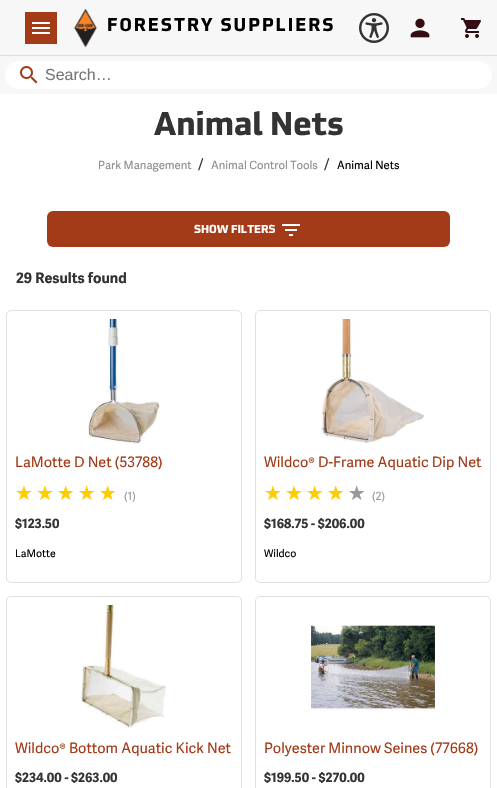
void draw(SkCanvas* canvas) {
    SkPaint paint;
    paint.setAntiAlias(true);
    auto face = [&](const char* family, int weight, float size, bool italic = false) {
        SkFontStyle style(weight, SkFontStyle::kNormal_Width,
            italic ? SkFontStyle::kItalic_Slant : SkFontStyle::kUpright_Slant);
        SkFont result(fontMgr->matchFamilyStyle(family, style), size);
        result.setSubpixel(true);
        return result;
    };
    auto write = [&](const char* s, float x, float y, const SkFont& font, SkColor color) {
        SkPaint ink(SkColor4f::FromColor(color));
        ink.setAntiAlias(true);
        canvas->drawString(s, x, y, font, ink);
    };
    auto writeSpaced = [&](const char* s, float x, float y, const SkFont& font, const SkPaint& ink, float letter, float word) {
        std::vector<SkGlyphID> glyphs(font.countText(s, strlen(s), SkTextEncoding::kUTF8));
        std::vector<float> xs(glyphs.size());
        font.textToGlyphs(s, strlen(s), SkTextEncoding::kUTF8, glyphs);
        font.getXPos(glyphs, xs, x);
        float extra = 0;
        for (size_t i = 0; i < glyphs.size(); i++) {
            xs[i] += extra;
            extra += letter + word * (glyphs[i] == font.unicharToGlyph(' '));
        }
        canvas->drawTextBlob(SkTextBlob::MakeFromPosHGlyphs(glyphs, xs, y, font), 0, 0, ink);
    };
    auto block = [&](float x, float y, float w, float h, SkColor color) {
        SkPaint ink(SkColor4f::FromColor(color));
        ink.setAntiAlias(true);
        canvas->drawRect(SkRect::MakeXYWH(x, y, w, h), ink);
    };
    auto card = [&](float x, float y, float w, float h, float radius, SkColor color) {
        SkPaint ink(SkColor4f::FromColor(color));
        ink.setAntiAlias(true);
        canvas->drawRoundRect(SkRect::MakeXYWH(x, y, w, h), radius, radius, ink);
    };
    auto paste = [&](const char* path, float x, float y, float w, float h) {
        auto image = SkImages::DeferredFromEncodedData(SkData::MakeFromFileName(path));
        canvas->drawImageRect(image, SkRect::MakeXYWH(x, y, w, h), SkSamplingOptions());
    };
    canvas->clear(SK_ColorWHITE);
    block(0, 0, 497, 55, SkColorSetRGB(247, 247, 247));
    block(25, 12, 32, 32, SkColorSetRGB(163, 58, 24));
    paste("pic1.png", 32, 22, 18, 12);
    paste("pic2.png", 74, 9, 24, 39);
    auto kFont1 = face("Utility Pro", 700, 18);
    paint.setColor(SK_ColorBLACK);
    writeSpaced("FORESTRY SUPPLIERS", 107, 31, kFont1, paint, 2, 0);
    paste("pic3.png", 410, 18, 20, 20);
    paste("pic4.png", 461, 18, 20, 20);
    paste("pic5.png", 359, 13, 30, 30);
    block(0, 56, 497, 38, SkColorSetRGB(247, 247, 247));
    block(0, 55, 497, 1, SkColorSetRGB(221, 221, 221));
    card(5, 61, 487, 28, 14, SK_ColorWHITE);
    paste("pic6.png", 20, 66, 18, 18);
    auto kFont2 = face("Liberation Sans", 400, 16);
    write("Search…", 45, 80, kFont2, SkColorSetRGB(117, 117, 117));
    auto kFont3 = face("Utility Pro", 700, 32);
    write("Animal Nets", 154, 135, kFont3, SkColorSetRGB(51, 51, 51));
    auto kFont4 = face("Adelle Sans", 400, 11.25f);
    write("Park Management", 98, 169, kFont4, SkColorSetRGB(141, 141, 141));
    auto kFont5 = face("Adelle Sans", 400, 14.4f);
    write("/", 198, 169, kFont5, SkColorSetRGB(51, 51, 51));
    write("Animal Control Tools", 211, 169, kFont4, SkColorSetRGB(141, 141, 141));
    write("/", 324, 169, kFont5, SkColorSetRGB(51, 51, 51));
    write("Animal Nets", 337, 169, kFont4, SK_ColorBLACK);
    card(47, 211, 403, 36, 6, SkColorSetRGB(163, 58, 24));
    auto kFont6 = face("Utility Pro", 700, 11.25f);
    write("SHOW FILTERS", 194, 233, kFont6, SK_ColorWHITE);
    paste("pic7.png", 282, 224, 18, 12);
    auto kFont7 = face("Adelle Sans", 700, 14.4f);
    write("29 Results found", 16, 283, kFont7, SkColorSetRGB(51, 51, 51));
    paint.setStyle(SkPaint::kStroke_Style);
    paint.setStrokeWidth(1);
    paint.setColor(SkColorSetRGB(224, 224, 224));
    canvas->drawRoundRect(SkRect::MakeXYWH(6.5f, 310.5f, 235, 272), 4.5f, 4.5f, paint);
    paste("pic8.png", 88, 319, 73, 124);
    write("LaMotte D Net (53788)", 15, 467, kFont5, SkColorSetRGB(163, 58, 24));
    auto kFont8 = face("DejaVu Sans", 400, 20);
    paint.setStyle(SkPaint::kFill_Style);
    {
        const SkColor colors[] = {SkColorSetRGB(255, 204, 0), SkColorSetRGB(153, 153, 153)};
        const float stops[] = {1, 1};
        const SkPoint ends[] = {{15, 493}, {120, 493}};
        paint.setShader(SkGradientShader::MakeLinear(ends, colors, stops, 2, SkTileMode::kClamp));
        paint.setAlpha(255);
    }
    writeSpaced("★★★★★", 15, 500, kFont8, paint, 3, 0);
    write("(1)", 124, 500, kFont4, SkColorSetRGB(153, 153, 153));
    auto kFont9 = face("Adelle Sans", 700, 12.75f);
    write("$123.50", 15, 528, kFont9, SkColorSetRGB(51, 51, 51));
    auto kFont10 = face("Adelle Sans", 400, 10.5f);
    write("LaMotte", 15, 557, kFont10, SK_ColorBLACK);
    paint.setStyle(SkPaint::kStroke_Style);
    paint.setShader(nullptr);
    paint.setColor(SkColorSetRGB(224, 224, 224));
    canvas->drawRoundRect(SkRect::MakeXYWH(255.5f, 310.5f, 235, 272), 4.5f, 4.5f, paint);
    paste("pic9.png", 321, 319, 104, 124);
    write("Wildco® D-Frame Aquatic Dip Net", 264, 467, kFont5, SkColorSetRGB(163, 58, 24));
    paint.setStyle(SkPaint::kFill_Style);
    {
        const SkColor colors[] = {SkColorSetRGB(255, 204, 0), SkColorSetRGB(153, 153, 153)};
        const float stops[] = {0.8f, 0.8f};
        const SkPoint ends[] = {{264, 493}, {369, 493}};
        paint.setShader(SkGradientShader::MakeLinear(ends, colors, stops, 2, SkTileMode::kClamp));
        paint.setAlpha(255);
    }
    writeSpaced("★★★★★", 264, 500, kFont8, paint, 3, 0);
    write("(2)", 372, 500, kFont4, SkColorSetRGB(153, 153, 153));
    write("$168.75 - $206.00", 264, 528, kFont9, SkColorSetRGB(51, 51, 51));
    write("Wildco", 264, 557, kFont10, SK_ColorBLACK);
    paint.setStyle(SkPaint::kStroke_Style);
    paint.setShader(nullptr);
    paint.setColor(SkColorSetRGB(224, 224, 224));
    canvas->drawRoundRect(SkRect::MakeXYWH(6.5f, 596.5f, 235, 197), 4.5f, 4.5f, paint);
    paste("pic10.png", 81, 605, 85, 123);
    write("Wildco® Bottom Aquatic Kick Net", 15, 753, kFont5, SkColorSetRGB(163, 58, 24));
    write("$234.00 - $263.00", 15, 782, kFont9, SkColorSetRGB(51, 51, 51));
    canvas->drawRoundRect(SkRect::MakeXYWH(255.5f, 596.5f, 235, 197), 4.5f, 4.5f, paint);
    paste("pic11.png", 311, 625, 124, 86);
    write("Polyester Minnow Seines (77668)", 264, 753, kFont5, SkColorSetRGB(163, 58, 24));
    write("$199.50 - $270.00", 264, 782, kFont9, SkColorSetRGB(51, 51, 51));
}
